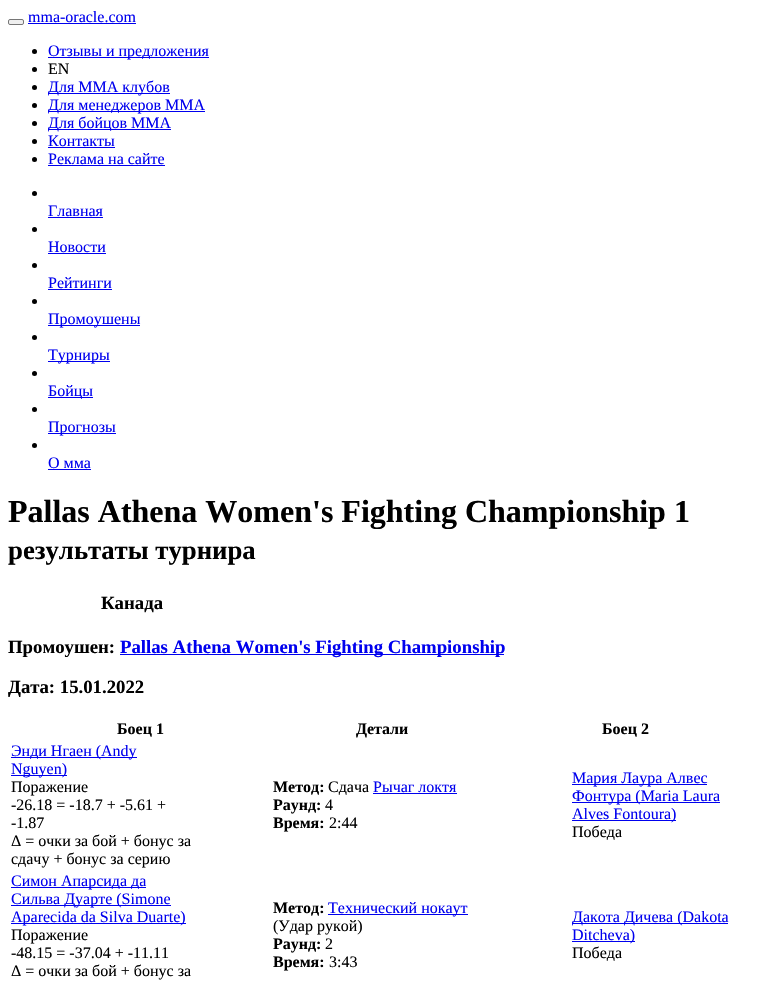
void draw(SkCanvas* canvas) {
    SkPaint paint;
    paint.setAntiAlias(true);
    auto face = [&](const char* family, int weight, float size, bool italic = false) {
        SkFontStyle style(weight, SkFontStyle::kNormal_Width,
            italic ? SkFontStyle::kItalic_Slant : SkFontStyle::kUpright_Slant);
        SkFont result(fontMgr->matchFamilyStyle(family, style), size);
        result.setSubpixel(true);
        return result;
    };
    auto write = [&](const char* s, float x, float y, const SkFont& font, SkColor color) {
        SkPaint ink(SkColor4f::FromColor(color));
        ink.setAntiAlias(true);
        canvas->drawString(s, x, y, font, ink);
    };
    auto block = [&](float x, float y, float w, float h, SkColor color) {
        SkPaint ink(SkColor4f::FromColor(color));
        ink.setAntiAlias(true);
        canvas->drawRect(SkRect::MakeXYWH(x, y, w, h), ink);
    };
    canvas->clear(SK_ColorWHITE);
    paint.setColor(SkColorSetRGB(239, 239, 239));
    canvas->drawRoundRect(SkRect::MakeXYWH(8.5f, 19.5f, 15, 5), 1.5f, 1.5f, paint);
    paint.setStyle(SkPaint::kStroke_Style);
    paint.setStrokeWidth(1);
    paint.setColor(SkColorSetRGB(118, 118, 118));
    canvas->drawRoundRect(SkRect::MakeXYWH(8.5f, 19.5f, 15, 5), 1.5f, 1.5f, paint);
    auto kFont1 = face("Liberation Serif", 400, 16);
    write("mma-oracle.com", 28, 22, kFont1, SkColorSetRGB(0, 0, 238));
    block(28, 23, 108, 1, SkColorSetRGB(0, 0, 238));
    paint.setStyle(SkPaint::kFill_Style);
    paint.setColor(SK_ColorBLACK);
    canvas->drawCircle(34.5f, 51.5f, 2.5f, paint);
    block(48, 57, 161, 1, SkColorSetRGB(0, 0, 238));
    write("Отзывы и предложения", 48, 56, kFont1, SkColorSetRGB(0, 0, 238));
    canvas->drawCircle(34.5f, 69.5f, 2.5f, paint);
    write("EN", 48, 74, kFont1, SK_ColorBLACK);
    canvas->drawCircle(34.5f, 87.5f, 2.5f, paint);
    block(48, 93, 122, 1, SkColorSetRGB(0, 0, 238));
    write("Для ММА клубов", 48, 92, kFont1, SkColorSetRGB(0, 0, 238));
    canvas->drawCircle(34.5f, 105.5f, 2.5f, paint);
    block(48, 111, 157, 1, SkColorSetRGB(0, 0, 238));
    write("Для менеджеров ММА", 48, 110, kFont1, SkColorSetRGB(0, 0, 238));
    canvas->drawCircle(34.5f, 123.5f, 2.5f, paint);
    block(48, 129, 123, 1, SkColorSetRGB(0, 0, 238));
    write("Для бойцов ММА", 48, 128, kFont1, SkColorSetRGB(0, 0, 238));
    canvas->drawCircle(34.5f, 141.5f, 2.5f, paint);
    write("Контакты", 48, 146, kFont1, SkColorSetRGB(0, 0, 238));
    block(48, 147, 67, 1, SkColorSetRGB(0, 0, 238));
    canvas->drawCircle(34.5f, 159.5f, 2.5f, paint);
    write("Реклама на сайте", 48, 164, kFont1, SkColorSetRGB(0, 0, 238));
    block(48, 165, 117, 1, SkColorSetRGB(0, 0, 238));
    canvas->drawCircle(34.5f, 193.5f, 2.5f, paint);
    write("Главная", 48, 216, kFont1, SkColorSetRGB(0, 0, 238));
    block(48, 217, 55, 1, SkColorSetRGB(0, 0, 238));
    canvas->drawCircle(34.5f, 229.5f, 2.5f, paint);
    write("Новости", 48, 252, kFont1, SkColorSetRGB(0, 0, 238));
    block(48, 253, 58, 1, SkColorSetRGB(0, 0, 238));
    canvas->drawCircle(34.5f, 265.5f, 2.5f, paint);
    write("Рейтинги", 48, 288, kFont1, SkColorSetRGB(0, 0, 238));
    block(48, 289, 64, 1, SkColorSetRGB(0, 0, 238));
    canvas->drawCircle(34.5f, 301.5f, 2.5f, paint);
    block(48, 325, 92, 1, SkColorSetRGB(0, 0, 238));
    write("Промоушены", 48, 324, kFont1, SkColorSetRGB(0, 0, 238));
    canvas->drawCircle(34.5f, 337.5f, 2.5f, paint);
    block(48, 361, 62, 1, SkColorSetRGB(0, 0, 238));
    write("Турниры", 48, 360, kFont1, SkColorSetRGB(0, 0, 238));
    canvas->drawCircle(34.5f, 373.5f, 2.5f, paint);
    block(48, 397, 45, 1, SkColorSetRGB(0, 0, 238));
    write("Бойцы", 48, 396, kFont1, SkColorSetRGB(0, 0, 238));
    canvas->drawCircle(34.5f, 409.5f, 2.5f, paint);
    block(48, 433, 68, 1, SkColorSetRGB(0, 0, 238));
    write("Прогнозы", 48, 432, kFont1, SkColorSetRGB(0, 0, 238));
    canvas->drawCircle(34.5f, 445.5f, 2.5f, paint);
    write("О мма", 48, 468, kFont1, SkColorSetRGB(0, 0, 238));
    block(48, 469, 43, 1, SkColorSetRGB(0, 0, 238));
    auto kFont2 = face("Liberation Serif", 700, 32);
    write("Pallas Athena Women's Fighting Championship 1", 8, 522, kFont2, SK_ColorBLACK);
    auto kFont3 = face("Liberation Serif", 700, 26.75f);
    write("результаты турнира", 8, 559, kFont3, SK_ColorBLACK);
    auto kFont4 = face("Liberation Serif", 700, 18.75f);
    write("Канада", 101, 609, kFont4, SK_ColorBLACK);
    write("Промоушен:", 8, 653, kFont4, SK_ColorBLACK);
    block(120, 654, 384, 1, SkColorSetRGB(0, 0, 238));
    write("Pallas Athena Women's Fighting Championship", 120, 653, kFont4, SkColorSetRGB(0, 0, 238));
    write("Дата: 15.01.2022", 8, 693, kFont4, SK_ColorBLACK);
    auto kFont5 = face("Liberation Serif", 700, 16);
    write("Боец 1", 117, 734, kFont5, SK_ColorBLACK);
    write("Детали", 356, 734, kFont5, SK_ColorBLACK);
    write("Боец 2", 602, 734, kFont5, SK_ColorBLACK);
    block(11, 757, 126, 1, SkColorSetRGB(0, 0, 238));
    write("Энди Нгаен (Andy", 11, 756, kFont1, SkColorSetRGB(0, 0, 238));
    block(11, 775, 56, 1, SkColorSetRGB(0, 0, 238));
    write("Nguyen)", 11, 774, kFont1, SkColorSetRGB(0, 0, 238));
    write("Поражение", 11, 792, kFont1, SK_ColorBLACK);
    write("-26.18 = -18.7 + -5.61 +", 11, 810, kFont1, SK_ColorBLACK);
    write("-1.87", 11, 828, kFont1, SK_ColorBLACK);
    write("Δ = очки за бой + бонус за", 11, 846, kFont1, SK_ColorBLACK);
    write("сдачу + бонус за серию", 11, 864, kFont1, SK_ColorBLACK);
    write("Метод:", 273, 792, kFont5, SK_ColorBLACK);
    write("Сдача", 328, 792, kFont1, SK_ColorBLACK);
    block(373, 793, 84, 1, SkColorSetRGB(0, 0, 238));
    write("Рычаг локтя", 373, 792, kFont1, SkColorSetRGB(0, 0, 238));
    write("Раунд:", 273, 810, kFont5, SK_ColorBLACK);
    write("4", 325, 810, kFont1, SK_ColorBLACK);
    write("Время:", 273, 828, kFont5, SK_ColorBLACK);
    write("2:44", 329, 828, kFont1, SK_ColorBLACK);
    block(572, 784, 135, 1, SkColorSetRGB(0, 0, 238));
    write("Мария Лаура Алвес", 572, 783, kFont1, SkColorSetRGB(0, 0, 238));
    block(572, 802, 148, 1, SkColorSetRGB(0, 0, 238));
    write("Фонтура (Maria Laura", 572, 801, kFont1, SkColorSetRGB(0, 0, 238));
    block(572, 820, 104, 1, SkColorSetRGB(0, 0, 238));
    write("Alves Fontoura)", 572, 819, kFont1, SkColorSetRGB(0, 0, 238));
    write("Победа", 572, 837, kFont1, SK_ColorBLACK);
    block(11, 887, 135, 1, SkColorSetRGB(0, 0, 238));
    write("Симон Апарсида да", 11, 886, kFont1, SkColorSetRGB(0, 0, 238));
    block(11, 905, 160, 1, SkColorSetRGB(0, 0, 238));
    write("Сильва Дуарте (Simone", 11, 904, kFont1, SkColorSetRGB(0, 0, 238));
    block(11, 923, 175, 1, SkColorSetRGB(0, 0, 238));
    write("Aparecida da Silva Duarte)", 11, 922, kFont1, SkColorSetRGB(0, 0, 238));
    write("Поражение", 11, 940, kFont1, SK_ColorBLACK);
    write("-48.15 = -37.04 + -11.11", 11, 958, kFont1, SK_ColorBLACK);
    write("Δ = очки за бой + бонус за", 11, 976, kFont1, SK_ColorBLACK);
    write("Метод:", 273, 913, kFont5, SK_ColorBLACK);
    block(328, 914, 140, 1, SkColorSetRGB(0, 0, 238));
    write("Технический нокаут", 328, 913, kFont1, SkColorSetRGB(0, 0, 238));
    write("(Удар рукой)", 273, 931, kFont1, SK_ColorBLACK);
    write("Раунд:", 273, 949, kFont5, SK_ColorBLACK);
    write("2", 325, 949, kFont1, SK_ColorBLACK);
    write("Время:", 273, 967, kFont5, SK_ColorBLACK);
    write("3:43", 329, 967, kFont1, SK_ColorBLACK);
    block(572, 923, 156, 1, SkColorSetRGB(0, 0, 238));
    write("Дакота Дичева (Dakota", 572, 922, kFont1, SkColorSetRGB(0, 0, 238));
    block(572, 941, 63, 1, SkColorSetRGB(0, 0, 238));
    write("Ditcheva)", 572, 940, kFont1, SkColorSetRGB(0, 0, 238));
    write("Победа", 572, 958, kFont1, SK_ColorBLACK);
}
